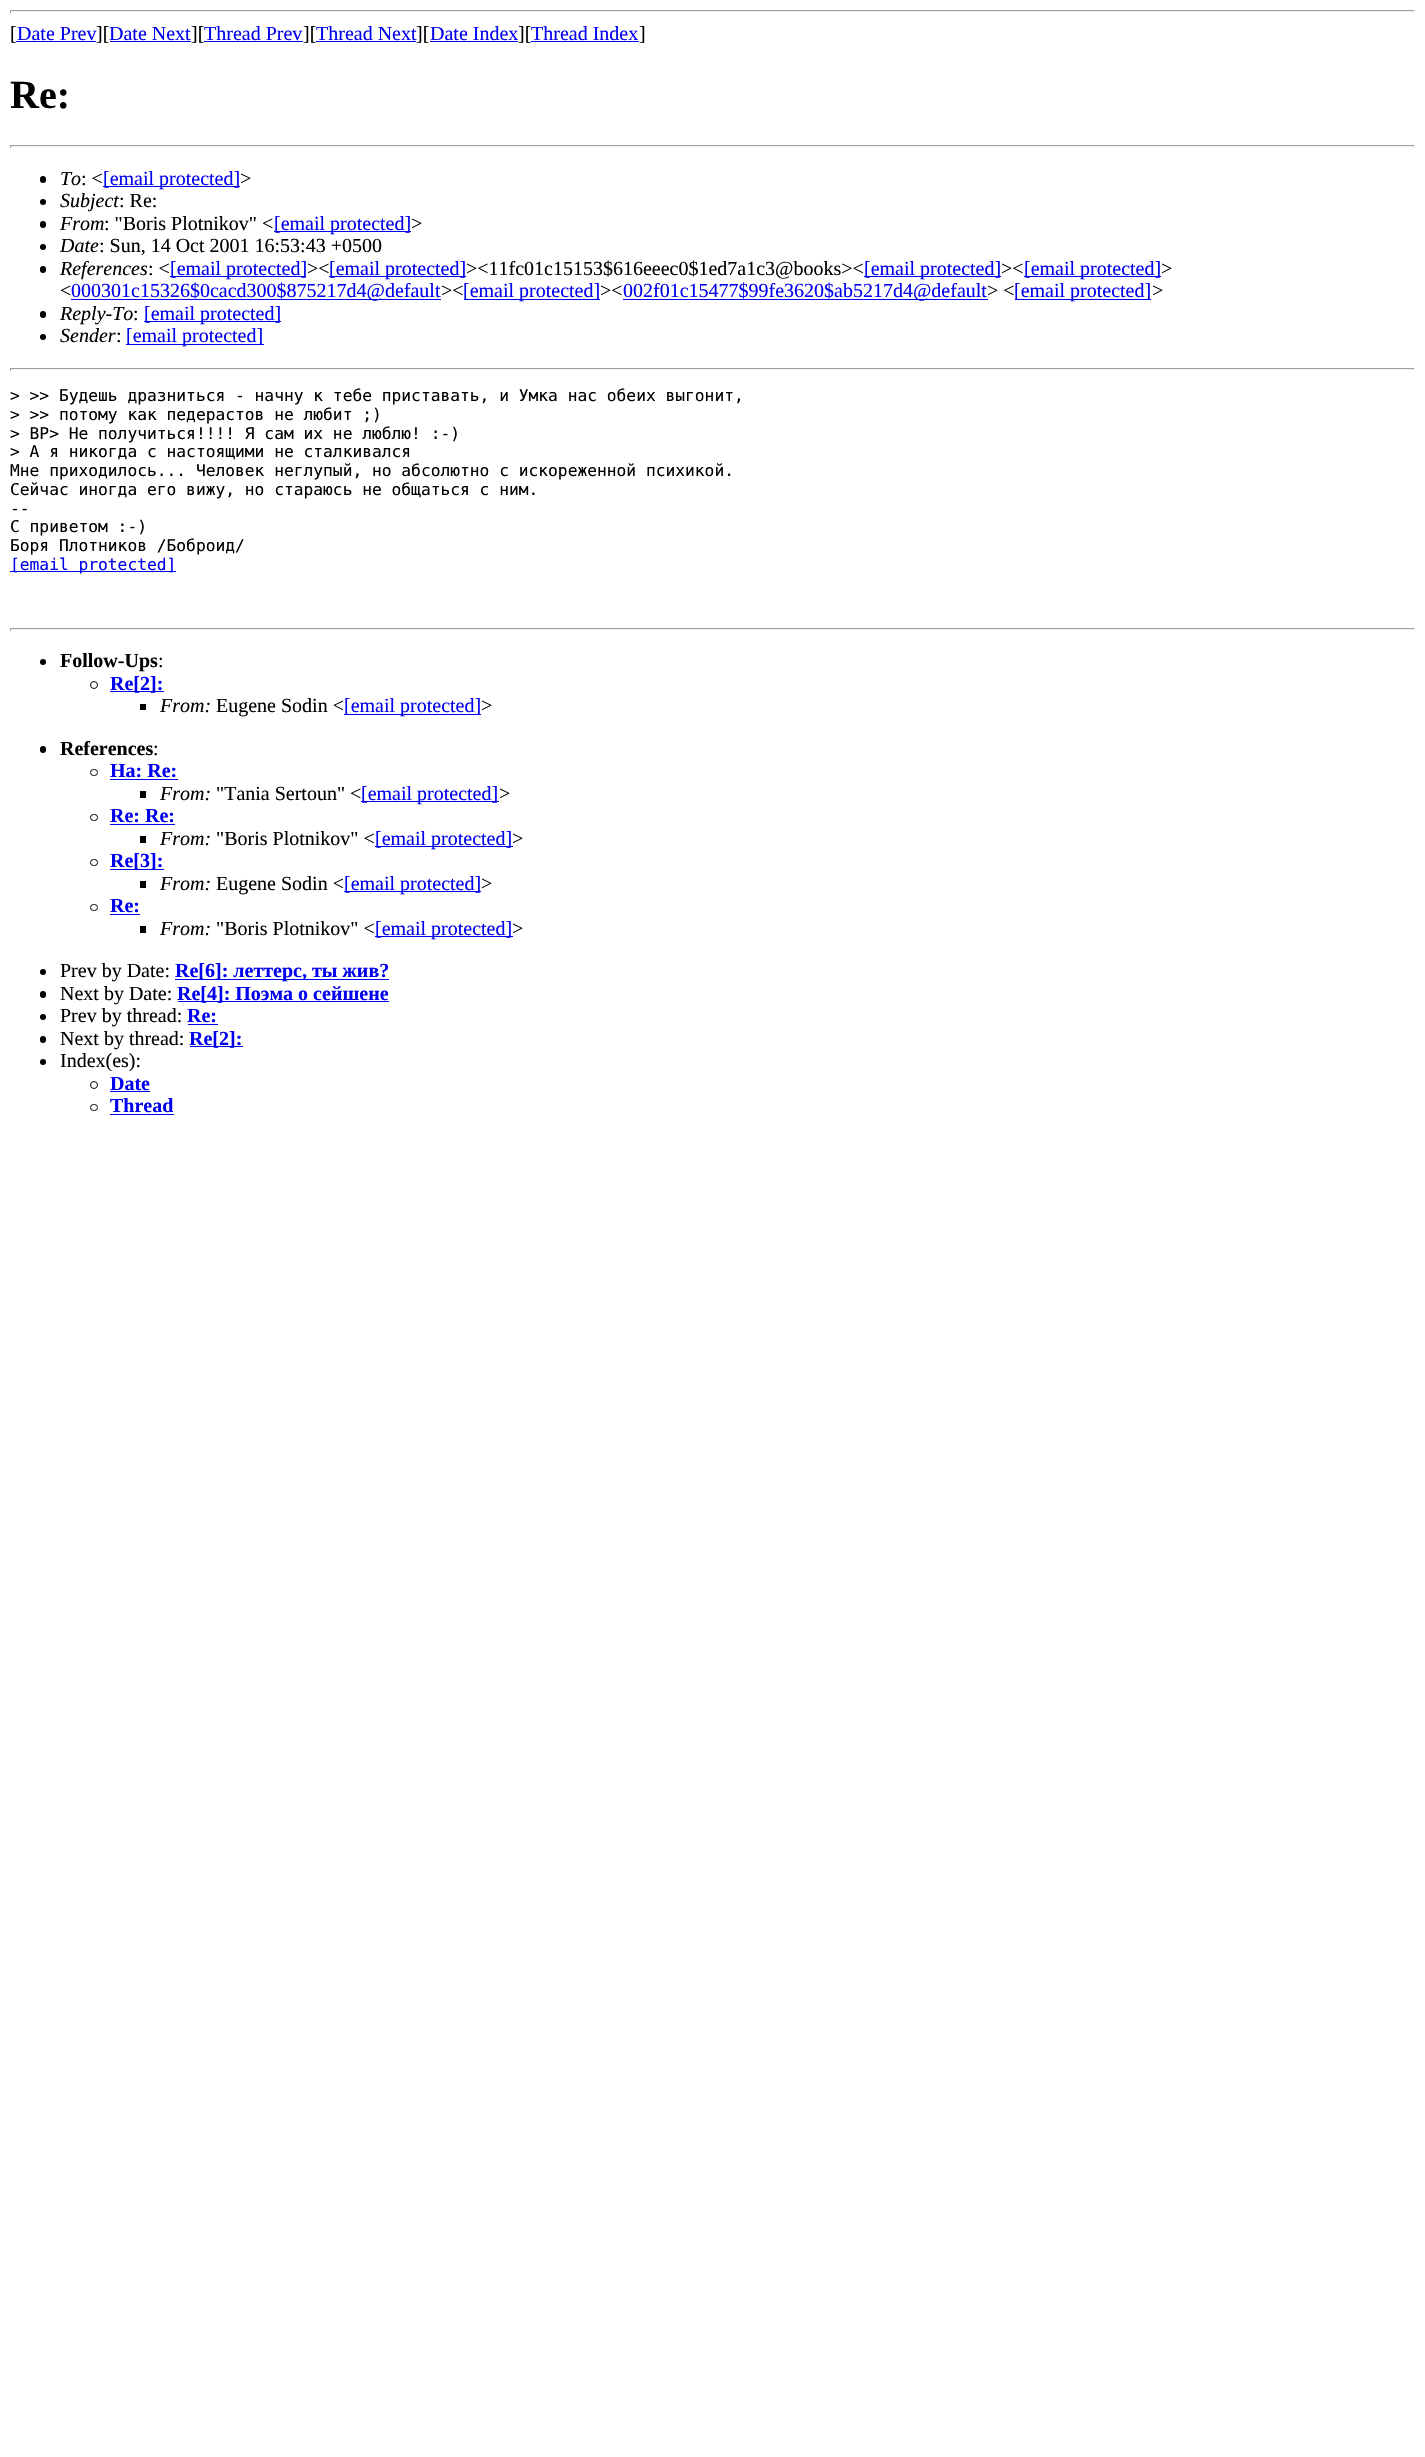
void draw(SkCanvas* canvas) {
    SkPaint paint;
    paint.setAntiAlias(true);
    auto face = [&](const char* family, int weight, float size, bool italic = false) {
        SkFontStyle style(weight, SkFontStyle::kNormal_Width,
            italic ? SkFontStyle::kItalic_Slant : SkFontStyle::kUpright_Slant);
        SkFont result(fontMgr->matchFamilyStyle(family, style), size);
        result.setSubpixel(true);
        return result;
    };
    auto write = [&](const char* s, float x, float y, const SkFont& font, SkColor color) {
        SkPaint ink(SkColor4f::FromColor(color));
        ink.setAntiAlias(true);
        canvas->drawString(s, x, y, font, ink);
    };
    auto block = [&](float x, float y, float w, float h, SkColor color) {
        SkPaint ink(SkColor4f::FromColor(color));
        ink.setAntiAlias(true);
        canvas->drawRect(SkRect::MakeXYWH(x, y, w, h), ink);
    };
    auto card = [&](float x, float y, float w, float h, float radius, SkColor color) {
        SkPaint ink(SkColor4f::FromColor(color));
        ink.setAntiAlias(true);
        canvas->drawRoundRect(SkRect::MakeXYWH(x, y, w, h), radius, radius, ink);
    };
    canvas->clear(SK_ColorWHITE);
    block(10, 10, 1405, 1, SkColorSetRGB(159, 159, 159));
    block(1414, 10, 1, 3, SkColorSetRGB(238, 238, 238));
    block(10, 11, 1405, 1, SkColorSetRGB(238, 238, 238));
    block(10, 10, 1, 3, SkColorSetRGB(159, 159, 159));
    auto kFont1 = face("Liberation Serif", 400, 20);
    write("[", 10, 40, kFont1, SK_ColorBLACK);
    write("Date Prev", 17, 40, kFont1, SkColorSetRGB(0, 0, 238));
    block(16, 41, 80, 1, SkColorSetRGB(0, 0, 238));
    write("][", 96, 40, kFont1, SK_ColorBLACK);
    write("Date Next", 109, 40, kFont1, SkColorSetRGB(0, 0, 238));
    block(110, 41, 81, 1, SkColorSetRGB(0, 0, 238));
    write("][", 191, 40, kFont1, SK_ColorBLACK);
    write("Thread Prev", 204, 40, kFont1, SkColorSetRGB(0, 0, 238));
    block(204, 41, 99, 1, SkColorSetRGB(0, 0, 238));
    write("][", 303, 40, kFont1, SK_ColorBLACK);
    write("Thread Next", 316, 40, kFont1, SkColorSetRGB(0, 0, 238));
    block(316, 41, 100, 1, SkColorSetRGB(0, 0, 238));
    write("][", 416, 40, kFont1, SK_ColorBLACK);
    write("Date Index", 430, 40, kFont1, SkColorSetRGB(0, 0, 238));
    block(430, 41, 88, 1, SkColorSetRGB(0, 0, 238));
    write("][", 518, 40, kFont1, SK_ColorBLACK);
    write("Thread Index", 531, 40, kFont1, SkColorSetRGB(0, 0, 238));
    block(531, 41, 108, 1, SkColorSetRGB(0, 0, 238));
    write("]", 639, 40, kFont1, SK_ColorBLACK);
    auto kFont2 = face("Liberation Serif", 700, 40);
    write("Re:", 10, 108, kFont2, SK_ColorBLACK);
    block(10, 145, 1405, 1, SkColorSetRGB(159, 159, 159));
    block(1414, 145, 1, 3, SkColorSetRGB(238, 238, 238));
    block(10, 146, 1405, 1, SkColorSetRGB(238, 238, 238));
    block(10, 145, 1, 3, SkColorSetRGB(159, 159, 159));
    card(40, 176, 6, 7, 3, SK_ColorBLACK);
    auto kFont3 = face("Liberation Serif", 400, 20, true);
    write("To", 60, 185, kFont3, SK_ColorBLACK);
    write(": <", 81, 185, kFont1, SK_ColorBLACK);
    block(103, 186, 137, 1, SkColorSetRGB(0, 0, 238));
    write("[email protected]", 103, 185, kFont1, SkColorSetRGB(0, 0, 238));
    write(">", 240, 185, kFont1, SK_ColorBLACK);
    paint.setColor(SK_ColorBLACK);
    canvas->drawCircle(43, 202, 3, paint);
    write("Subject", 60, 207, kFont3, SK_ColorBLACK);
    write(": Re:", 119, 207, kFont1, SK_ColorBLACK);
    card(40, 221, 6, 7, 3, SK_ColorBLACK);
    write("From", 60, 230, kFont3, SK_ColorBLACK);
    write(": \"Boris Plotnikov\" <", 104, 230, kFont1, SK_ColorBLACK);
    block(274, 231, 137, 1, SkColorSetRGB(0, 0, 238));
    write("[email protected]", 274, 230, kFont1, SkColorSetRGB(0, 0, 238));
    write(">", 411, 230, kFont1, SK_ColorBLACK);
    canvas->drawCircle(43, 247, 3, paint);
    write("Date", 60, 252, kFont3, SK_ColorBLACK);
    write(": Sun, 14 Oct 2001 16:53:43 +0500", 99, 252, kFont1, SK_ColorBLACK);
    card(40, 266, 6, 7, 3, SK_ColorBLACK);
    write("References", 60, 275, kFont3, SK_ColorBLACK);
    write(": <", 148, 275, kFont1, SK_ColorBLACK);
    block(170, 276, 136, 1, SkColorSetRGB(0, 0, 238));
    write("[email protected]", 170, 275, kFont1, SkColorSetRGB(0, 0, 238));
    write("><", 307, 275, kFont1, SK_ColorBLACK);
    block(329, 276, 137, 1, SkColorSetRGB(0, 0, 238));
    write("[email protected]", 329, 275, kFont1, SkColorSetRGB(0, 0, 238));
    write("><11fc01c15153$616eeec0$1ed7a1c3@books><", 466, 275, kFont1, SK_ColorBLACK);
    block(864, 276, 137, 1, SkColorSetRGB(0, 0, 238));
    write("[email protected]", 864, 275, kFont1, SkColorSetRGB(0, 0, 238));
    write("><", 1001, 275, kFont1, SK_ColorBLACK);
    block(1024, 276, 137, 1, SkColorSetRGB(0, 0, 238));
    write("[email protected]", 1024, 275, kFont1, SkColorSetRGB(0, 0, 238));
    write(">", 1161, 275, kFont1, SK_ColorBLACK);
    write("<", 60, 297, kFont1, SK_ColorBLACK);
    block(71, 299, 370, 1, SkColorSetRGB(0, 0, 238));
    write("000301c15326$0cacd300$875217d4@default", 71, 297, kFont1, SkColorSetRGB(0, 0, 238));
    write("><", 441, 297, kFont1, SK_ColorBLACK);
    block(464, 299, 136, 1, SkColorSetRGB(0, 0, 238));
    write("[email protected]", 463, 297, kFont1, SkColorSetRGB(0, 0, 238));
    write("><", 600, 297, kFont1, SK_ColorBLACK);
    block(623, 299, 365, 1, SkColorSetRGB(0, 0, 238));
    write("002f01c15477$99fe3620$ab5217d4@default", 623, 297, kFont1, SkColorSetRGB(0, 0, 238));
    write("> <", 987, 297, kFont1, SK_ColorBLACK);
    block(1015, 299, 136, 1, SkColorSetRGB(0, 0, 238));
    write("[email protected]", 1014, 297, kFont1, SkColorSetRGB(0, 0, 238));
    write(">", 1152, 297, kFont1, SK_ColorBLACK);
    card(40, 311, 6, 7, 3, SK_ColorBLACK);
    write("Reply-To", 60, 320, kFont3, SK_ColorBLACK);
    write(":", 133, 320, kFont1, SK_ColorBLACK);
    block(144, 321, 137, 1, SkColorSetRGB(0, 0, 238));
    write("[email protected]", 144, 320, kFont1, SkColorSetRGB(0, 0, 238));
    canvas->drawCircle(43, 337, 3, paint);
    write("Sender", 60, 342, kFont3, SK_ColorBLACK);
    write(":", 116, 342, kFont1, SK_ColorBLACK);
    block(126, 344, 138, 1, SkColorSetRGB(0, 0, 238));
    write("[email protected]", 126, 342, kFont1, SkColorSetRGB(0, 0, 238));
    block(10, 368, 1405, 1, SkColorSetRGB(159, 159, 159));
    block(1414, 368, 1, 3, SkColorSetRGB(238, 238, 238));
    block(10, 369, 1405, 1, SkColorSetRGB(238, 238, 238));
    block(10, 368, 1, 3, SkColorSetRGB(159, 159, 159));
    auto kFont4 = face("DejaVu Sans Mono", 400, 16.25f);
    write("> >> Будешь дразниться - начну к тебе приставать, и Умка нас обеих выгонит,", 10, 401, kFont4, SK_ColorBLACK);
    write("> >> потому как педерастов не любит ;)", 10, 420, kFont4, SK_ColorBLACK);
    write("> BP> Не получиться!!!! Я сам их не люблю! :-)", 10, 439, kFont4, SK_ColorBLACK);
    write("> А я никогда с настоящими не сталкивался", 10, 457, kFont4, SK_ColorBLACK);
    write("Мне приходилось... Человек неглупый, но абсолютно с искореженной психикой.", 10, 476, kFont4, SK_ColorBLACK);
    write("Сейчас иногда его вижу, но стараюсь не общаться с ним.", 10, 495, kFont4, SK_ColorBLACK);
    write("--", 10, 514, kFont4, SK_ColorBLACK);
    write("С приветом :-)", 10, 532, kFont4, SK_ColorBLACK);
    write("Боря Плотников /Боброид/", 10, 551, kFont4, SK_ColorBLACK);
    block(10, 571, 166, 1, SkColorSetRGB(0, 0, 238));
    write("[email protected]", 10, 570, kFont4, SkColorSetRGB(0, 0, 238));
    block(10, 628, 1405, 1, SkColorSetRGB(159, 159, 159));
    block(1414, 628, 1, 3, SkColorSetRGB(238, 238, 238));
    block(10, 629, 1405, 1, SkColorSetRGB(238, 238, 238));
    block(10, 628, 1, 3, SkColorSetRGB(159, 159, 159));
    canvas->drawCircle(43, 662, 3, paint);
    auto kFont5 = face("Liberation Serif", 700, 20);
    write("Follow-Ups", 60, 667, kFont5, SK_ColorBLACK);
    write(":", 158, 667, kFont1, SK_ColorBLACK);
    paint.setStyle(SkPaint::kStroke_Style);
    paint.setStrokeWidth(1);
    canvas->drawCircle(94, 685, 3.5f, paint);
    block(110, 691, 54, 1, SkColorSetRGB(0, 0, 238));
    write("Re[2]:", 110, 690, kFont5, SkColorSetRGB(0, 0, 238));
    block(140, 704, 6, 6, SK_ColorBLACK);
    write("From:", 160, 712, kFont3, SK_ColorBLACK);
    write("Eugene Sodin <", 216, 712, kFont1, SK_ColorBLACK);
    block(344, 714, 137, 1, SkColorSetRGB(0, 0, 238));
    write("[email protected]", 344, 712, kFont1, SkColorSetRGB(0, 0, 238));
    write(">", 481, 712, kFont1, SK_ColorBLACK);
    card(40, 746, 6, 7, 3, SK_ColorBLACK);
    write("References", 60, 755, kFont5, SK_ColorBLACK);
    write(":", 153, 755, kFont1, SK_ColorBLACK);
    canvas->drawRoundRect(SkRect::MakeXYWH(90.5f, 769.5f, 7, 6), 3, 3, paint);
    write("На: Re:", 110, 777, kFont5, SkColorSetRGB(0, 0, 238));
    block(110, 779, 68, 1, SkColorSetRGB(0, 0, 238));
    block(140, 791, 6, 7, SK_ColorBLACK);
    write("From:", 160, 800, kFont3, SK_ColorBLACK);
    write("\"Tania Sertoun\" <", 216, 800, kFont1, SK_ColorBLACK);
    block(361, 801, 138, 1, SkColorSetRGB(0, 0, 238));
    write("[email protected]", 361, 800, kFont1, SkColorSetRGB(0, 0, 238));
    write(">", 499, 800, kFont1, SK_ColorBLACK);
    canvas->drawRoundRect(SkRect::MakeXYWH(90.5f, 814.5f, 7, 6), 3, 3, paint);
    write("Re: Re:", 110, 822, kFont5, SkColorSetRGB(0, 0, 238));
    block(110, 824, 65, 1, SkColorSetRGB(0, 0, 238));
    block(140, 836, 6, 7, SK_ColorBLACK);
    write("From:", 160, 845, kFont3, SK_ColorBLACK);
    write("\"Boris Plotnikov\" <", 216, 845, kFont1, SK_ColorBLACK);
    block(375, 846, 138, 1, SkColorSetRGB(0, 0, 238));
    write("[email protected]", 375, 845, kFont1, SkColorSetRGB(0, 0, 238));
    write(">", 512, 845, kFont1, SK_ColorBLACK);
    canvas->drawRoundRect(SkRect::MakeXYWH(90.5f, 859.5f, 7, 6), 3, 3, paint);
    block(110, 869, 54, 1, SkColorSetRGB(0, 0, 238));
    write("Re[3]:", 110, 867, kFont5, SkColorSetRGB(0, 0, 238));
    block(140, 881, 6, 7, SK_ColorBLACK);
    write("From:", 160, 890, kFont3, SK_ColorBLACK);
    write("Eugene Sodin <", 216, 890, kFont1, SK_ColorBLACK);
    block(344, 891, 137, 1, SkColorSetRGB(0, 0, 238));
    write("[email protected]", 344, 890, kFont1, SkColorSetRGB(0, 0, 238));
    write(">", 481, 890, kFont1, SK_ColorBLACK);
    canvas->drawRoundRect(SkRect::MakeXYWH(90.5f, 904.5f, 7, 6), 3, 3, paint);
    write("Re:", 110, 912, kFont5, SkColorSetRGB(0, 0, 238));
    block(110, 914, 30, 1, SkColorSetRGB(0, 0, 238));
    block(140, 926, 6, 7, SK_ColorBLACK);
    write("From:", 160, 935, kFont3, SK_ColorBLACK);
    write("\"Boris Plotnikov\" <", 216, 935, kFont1, SK_ColorBLACK);
    block(375, 936, 138, 1, SkColorSetRGB(0, 0, 238));
    write("[email protected]", 375, 935, kFont1, SkColorSetRGB(0, 0, 238));
    write(">", 512, 935, kFont1, SK_ColorBLACK);
    paint.setStyle(SkPaint::kFill_Style);
    canvas->drawCircle(43, 972, 3, paint);
    write("Prev by Date:", 60, 977, kFont1, SK_ColorBLACK);
    block(175, 979, 214, 1, SkColorSetRGB(0, 0, 238));
    write("Re[6]: леттерс, ты жив?", 175, 977, kFont5, SkColorSetRGB(0, 0, 238));
    card(40, 991, 6, 7, 3, SK_ColorBLACK);
    write("Next by Date:", 60, 1000, kFont1, SK_ColorBLACK);
    block(178, 1001, 211, 1, SkColorSetRGB(0, 0, 238));
    write("Re[4]: Поэма о сейшене", 177, 1000, kFont5, SkColorSetRGB(0, 0, 238));
    canvas->drawCircle(43, 1017, 3, paint);
    write("Prev by thread:", 60, 1022, kFont1, SK_ColorBLACK);
    write("Re:", 187, 1022, kFont5, SkColorSetRGB(0, 0, 238));
    block(188, 1024, 30, 1, SkColorSetRGB(0, 0, 238));
    card(40, 1036, 6, 7, 3, SK_ColorBLACK);
    write("Next by thread:", 60, 1045, kFont1, SK_ColorBLACK);
    block(190, 1046, 53, 1, SkColorSetRGB(0, 0, 238));
    write("Re[2]:", 189, 1045, kFont5, SkColorSetRGB(0, 0, 238));
    canvas->drawCircle(43, 1062, 3, paint);
    write("Index(es):", 60, 1067, kFont1, SK_ColorBLACK);
    paint.setStyle(SkPaint::kStroke_Style);
    canvas->drawCircle(94, 1085, 3.5f, paint);
    write("Date", 110, 1090, kFont5, SkColorSetRGB(0, 0, 238));
    block(110, 1091, 40, 1, SkColorSetRGB(0, 0, 238));
    canvas->drawRoundRect(SkRect::MakeXYWH(90.5f, 1104.5f, 7, 6), 3, 3, paint);
    write("Thread", 110, 1112, kFont5, SkColorSetRGB(0, 0, 238));
    block(110, 1114, 64, 1, SkColorSetRGB(0, 0, 238));
}
